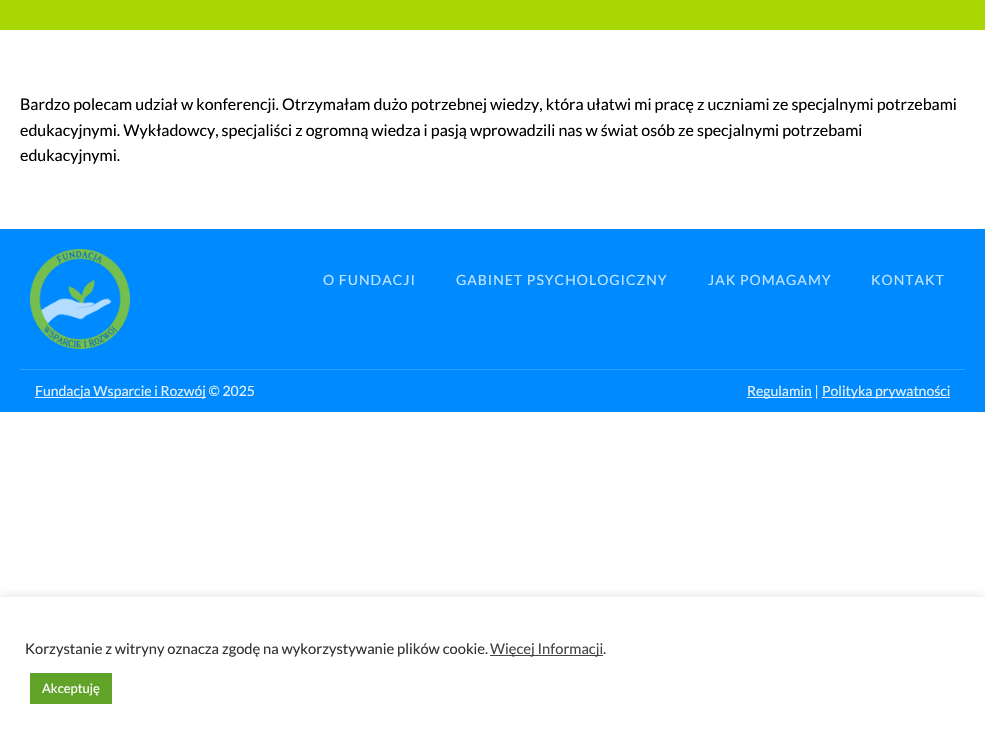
void draw(SkCanvas* canvas) {
    SkPaint paint;
    paint.setAntiAlias(true);
    auto face = [&](const char* family, int weight, float size, bool italic = false) {
        SkFontStyle style(weight, SkFontStyle::kNormal_Width,
            italic ? SkFontStyle::kItalic_Slant : SkFontStyle::kUpright_Slant);
        SkFont result(fontMgr->matchFamilyStyle(family, style), size);
        result.setSubpixel(true);
        return result;
    };
    auto write = [&](const char* s, float x, float y, const SkFont& font, SkColor color) {
        SkPaint ink(SkColor4f::FromColor(color));
        ink.setAntiAlias(true);
        canvas->drawString(s, x, y, font, ink);
    };
    auto writeSpaced = [&](const char* s, float x, float y, const SkFont& font, const SkPaint& ink, float letter, float word) {
        std::vector<SkGlyphID> glyphs(font.countText(s, strlen(s), SkTextEncoding::kUTF8));
        std::vector<float> xs(glyphs.size());
        font.textToGlyphs(s, strlen(s), SkTextEncoding::kUTF8, glyphs);
        font.getXPos(glyphs, xs, x);
        float extra = 0;
        for (size_t i = 0; i < glyphs.size(); i++) {
            xs[i] += extra;
            extra += letter + word * (glyphs[i] == font.unicharToGlyph(' '));
        }
        canvas->drawTextBlob(SkTextBlob::MakeFromPosHGlyphs(glyphs, xs, y, font), 0, 0, ink);
    };
    auto block = [&](float x, float y, float w, float h, SkColor color) {
        SkPaint ink(SkColor4f::FromColor(color));
        ink.setAntiAlias(true);
        canvas->drawRect(SkRect::MakeXYWH(x, y, w, h), ink);
    };
    auto paste = [&](const char* path, float x, float y, float w, float h) {
        auto image = SkImages::DeferredFromEncodedData(SkData::MakeFromFileName(path));
        canvas->drawImageRect(image, SkRect::MakeXYWH(x, y, w, h), SkSamplingOptions());
    };
    canvas->clear(SK_ColorWHITE);
    block(0, 0, 985, 30, SkColorSetRGB(168, 214, 3));
    auto kFont1 = face("Lato", 400, 16);
    write("Bardzo polecam udział w konferencji. Otrzymałam dużo potrzebnej wiedzy, która ułatwi mi pracę z uczniami ze specjalnymi potrzebami", 20, 110, kFont1, SK_ColorBLACK);
    write("edukacyjnymi. Wykładowcy, specjaliści z ogromną wiedza i pasją wprowadzili nas w świat osób ze specjalnymi potrzebami", 20, 136, kFont1, SK_ColorBLACK);
    write("edukacyjnymi.", 20, 161, kFont1, SK_ColorBLACK);
    block(0, 229, 985, 183, SkColorSetRGB(0, 138, 255));
    paste("pic1.png", 30, 249, 100, 100);
    auto kFont2 = face("Lato", 400, 14);
    paint.setColor(SkColorSetRGB(191, 226, 255));
    writeSpaced("O FUNDACJI", 323, 285, kFont2, paint, 1, 0);
    writeSpaced("GABINET PSYCHOLOGICZNY", 456, 285, kFont2, paint, 1, 0);
    writeSpaced("JAK POMAGAMY", 708, 285, kFont2, paint, 1, 0);
    writeSpaced("KONTAKT", 871, 285, kFont2, paint, 1, 0);
    block(20, 369, 945, 1, SkColorSetRGB(51, 161, 255));
    block(35, 397, 171, 1, SkColorSetRGB(230, 240, 250));
    write("Fundacja Wsparcie i Rozwój © 2025", 35, 396, kFont2, SkColorSetRGB(230, 240, 250));
    block(747, 397, 65, 1, SkColorSetRGB(230, 240, 250));
    write("Regulamin |", 747, 396, kFont2, SkColorSetRGB(230, 240, 250));
    block(822, 397, 128, 1, SkColorSetRGB(230, 240, 250));
    write("Polityka prywatności", 822, 396, kFont2, SkColorSetRGB(230, 240, 250));
    canvas->save();
    canvas->clipRect(SkRect::MakeXYWH(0, 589, 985, 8));
    paint.setColor(SkColorSetARGB(77, 172, 171, 171));
    paint.setMaskFilter(SkMaskFilter::MakeBlur(kNormal_SkBlurStyle, 5));
    canvas->drawRect(SkRect::MakeXYWH(0, 596, 985, 137), paint);
    paint.setMaskFilter(nullptr);
    canvas->restore();
    auto kFont3 = face("Lato", 400, 14.7f);
    write("Korzystanie z witryny oznacza zgodę na wykorzystywanie plików cookie.", 25, 654, kFont3, SkColorSetRGB(51, 51, 51));
    block(490, 655, 113, 1, SkColorSetRGB(68, 68, 68));
    write("Więcej Informacji", 490, 654, kFont3, SkColorSetRGB(68, 68, 68));
    write(".", 603, 654, kFont3, SkColorSetRGB(51, 51, 51));
    block(30, 673, 82, 31, SkColorSetRGB(97, 162, 41));
    auto kFont4 = face("Lato", 400, 13);
    write("Akceptuję", 42, 693, kFont4, SK_ColorWHITE);
}
